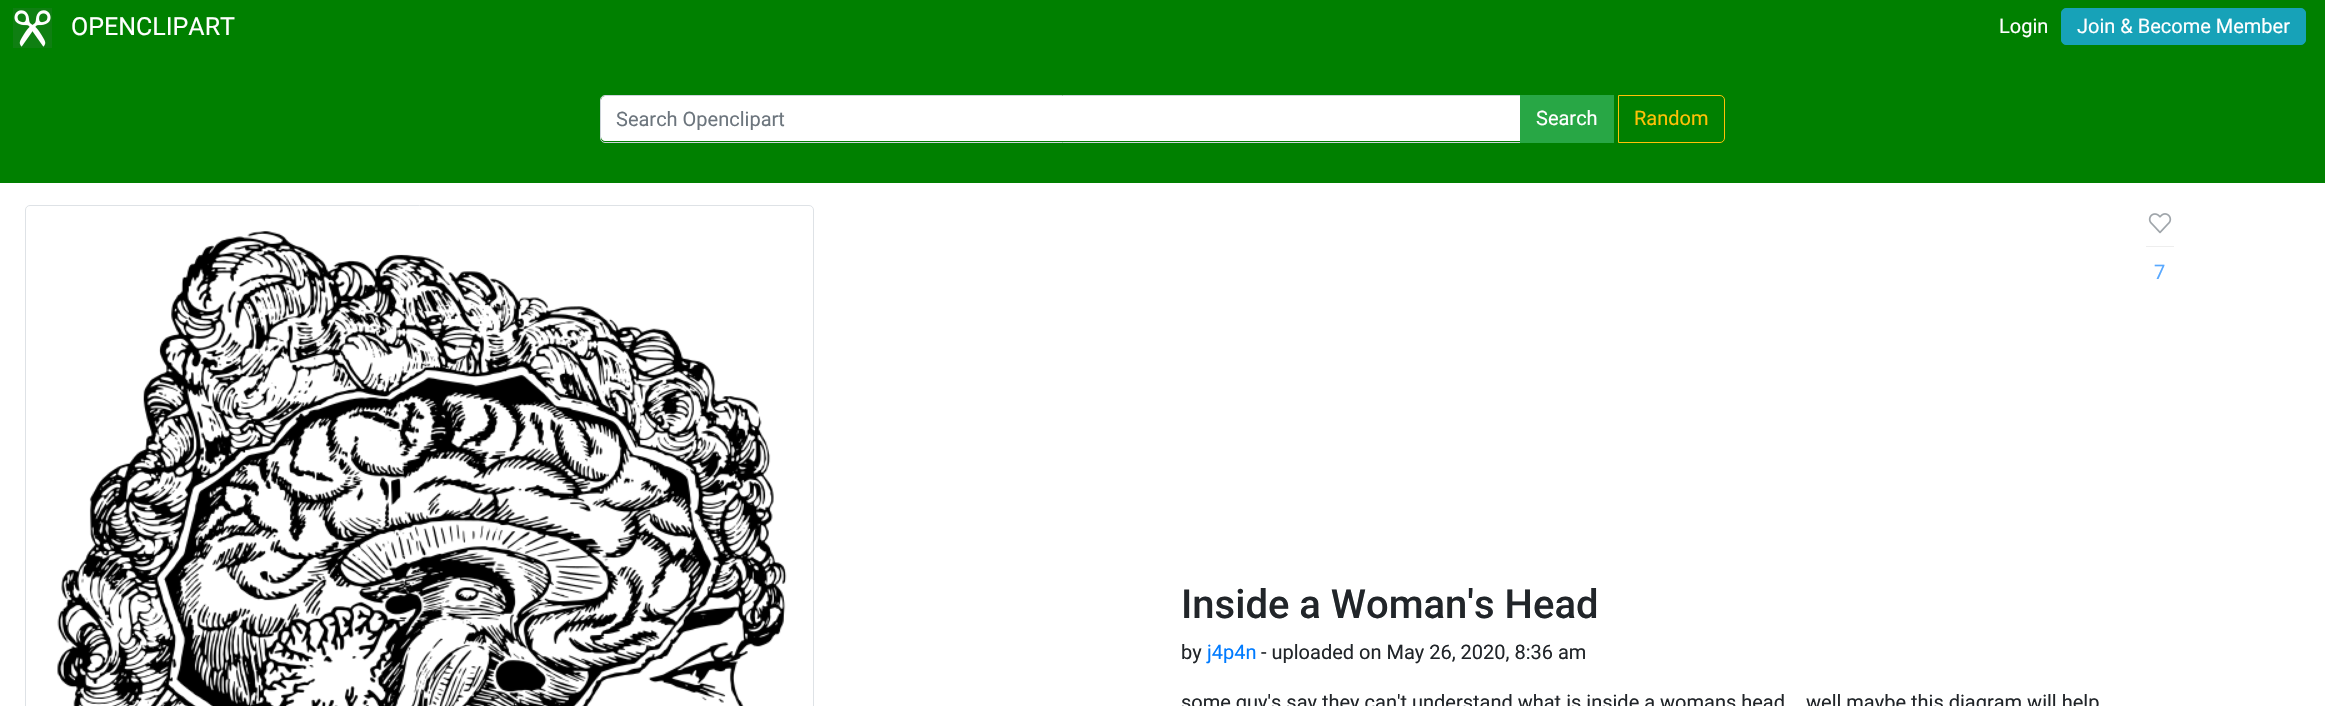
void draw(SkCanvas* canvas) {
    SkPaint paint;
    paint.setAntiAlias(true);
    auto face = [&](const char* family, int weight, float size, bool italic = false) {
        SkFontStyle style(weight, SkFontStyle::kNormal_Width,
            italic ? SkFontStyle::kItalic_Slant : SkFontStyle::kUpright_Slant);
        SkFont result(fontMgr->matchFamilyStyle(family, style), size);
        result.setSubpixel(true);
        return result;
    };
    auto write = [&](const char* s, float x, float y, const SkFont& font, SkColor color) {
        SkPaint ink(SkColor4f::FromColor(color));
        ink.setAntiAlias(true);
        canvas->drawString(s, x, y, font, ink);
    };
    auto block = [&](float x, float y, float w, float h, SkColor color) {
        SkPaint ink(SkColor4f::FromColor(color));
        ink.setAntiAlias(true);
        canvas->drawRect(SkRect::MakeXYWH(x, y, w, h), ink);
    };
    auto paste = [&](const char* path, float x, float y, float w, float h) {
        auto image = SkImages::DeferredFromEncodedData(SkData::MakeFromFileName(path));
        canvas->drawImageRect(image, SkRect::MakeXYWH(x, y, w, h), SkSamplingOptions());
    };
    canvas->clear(SK_ColorWHITE);
    block(0, 0, 2325, 183, SkColorSetRGB(0, 128, 0));
    paste("pic1.png", 13, 8, 39, 40);
    auto kFont1 = face("Roboto", 400, 25);
    write("OPENCLIPART", 71, 35, kFont1, SK_ColorWHITE);
    auto kFont2 = face("Roboto", 400, 20);
    write("Login", 1999, 33, kFont2, SK_ColorWHITE);
    paint.setColor(SkColorSetRGB(23, 162, 184));
    canvas->drawRoundRect(SkRect::MakeXYWH(2061.5f, 8.5f, 244, 36), 4.5f, 4.5f, paint);
    paint.setStyle(SkPaint::kStroke_Style);
    paint.setStrokeWidth(1);
    canvas->drawRoundRect(SkRect::MakeXYWH(2061.5f, 8.5f, 244, 36), 4.5f, 4.5f, paint);
    write("Join & Become Member", 2077, 33, kFont2, SK_ColorWHITE);
    paint.setStyle(SkPaint::kFill_Style);
    paint.setColor(SK_ColorWHITE);
    canvas->drawPath(SkPathBuilder().moveTo(605, 96).lineTo(1520, 96).lineTo(1520, 141).lineTo(605, 141).cubicTo(603, 141, 601, 139, 601, 137).lineTo(601, 100).cubicTo(601, 98, 603, 96, 605, 96).close().detach(), paint);
    paint.setStyle(SkPaint::kStroke_Style);
    paint.setColor(SkColorSetRGB(206, 212, 218));
    canvas->drawPath(SkPathBuilder().moveTo(605, 95.5f).lineTo(1520.5f, 95.5f).lineTo(1520.5f, 142.5f).lineTo(605, 142.5f).cubicTo(602.5f, 142.5f, 600.5f, 140.5f, 600.5f, 138).lineTo(600.5f, 100).cubicTo(600.5f, 97.5f, 602.5f, 95.5f, 605, 95.5f).close().detach(), paint);
    write("Search Openclipart", 616, 126, kFont2, SkColorSetRGB(108, 117, 125));
    block(1520, 95, 94, 48, SkColorSetRGB(40, 167, 69));
    write("Search", 1536, 125, kFont2, SK_ColorWHITE);
    paint.setColor(SkColorSetRGB(255, 193, 7));
    canvas->drawPath(SkPathBuilder().moveTo(1618.5f, 95.5f).lineTo(1720, 95.5f).cubicTo(1722.5f, 95.5f, 1724.5f, 97.5f, 1724.5f, 100).lineTo(1724.5f, 138).cubicTo(1724.5f, 140.5f, 1722.5f, 142.5f, 1720, 142.5f).lineTo(1618.5f, 142.5f).close().detach(), paint);
    write("Random", 1634, 125, kFont2, SkColorSetRGB(255, 193, 7));
    paint.setColor(SkColorSetRGB(222, 226, 230));
    canvas->drawRoundRect(SkRect::MakeXYWH(25.5f, 205.5f, 788, 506), 4.5f, 4.5f, paint);
    paste("pic2.png", 57, 231, 730, 475);
    paste("pic3.png", 2148, 213, 24, 21);
    block(2146, 246, 28, 1, SkColorSetRGB(238, 238, 238));
    write("7", 2154, 279, kFont2, SkColorSetRGB(89, 169, 255));
    auto kFont3 = face("Roboto", 500, 40);
    write("Inside a Woman's Head", 1181, 618, kFont3, SkColorSetRGB(33, 37, 41));
    write("by", 1181, 659, kFont2, SkColorSetRGB(33, 37, 41));
    write("j4p4n", 1207, 659, kFont2, SkColorSetRGB(0, 123, 255));
    write("- uploaded on May 26, 2020, 8:36 am", 1261, 659, kFont2, SkColorSetRGB(33, 37, 41));
    write("some guy's say they can't understand what is inside a womans head", 1181, 709, kFont2, SkColorSetRGB(33, 37, 41));
    write("well maybe this diagram will help", 1806, 709, kFont2, SkColorSetRGB(33, 37, 41));
}
